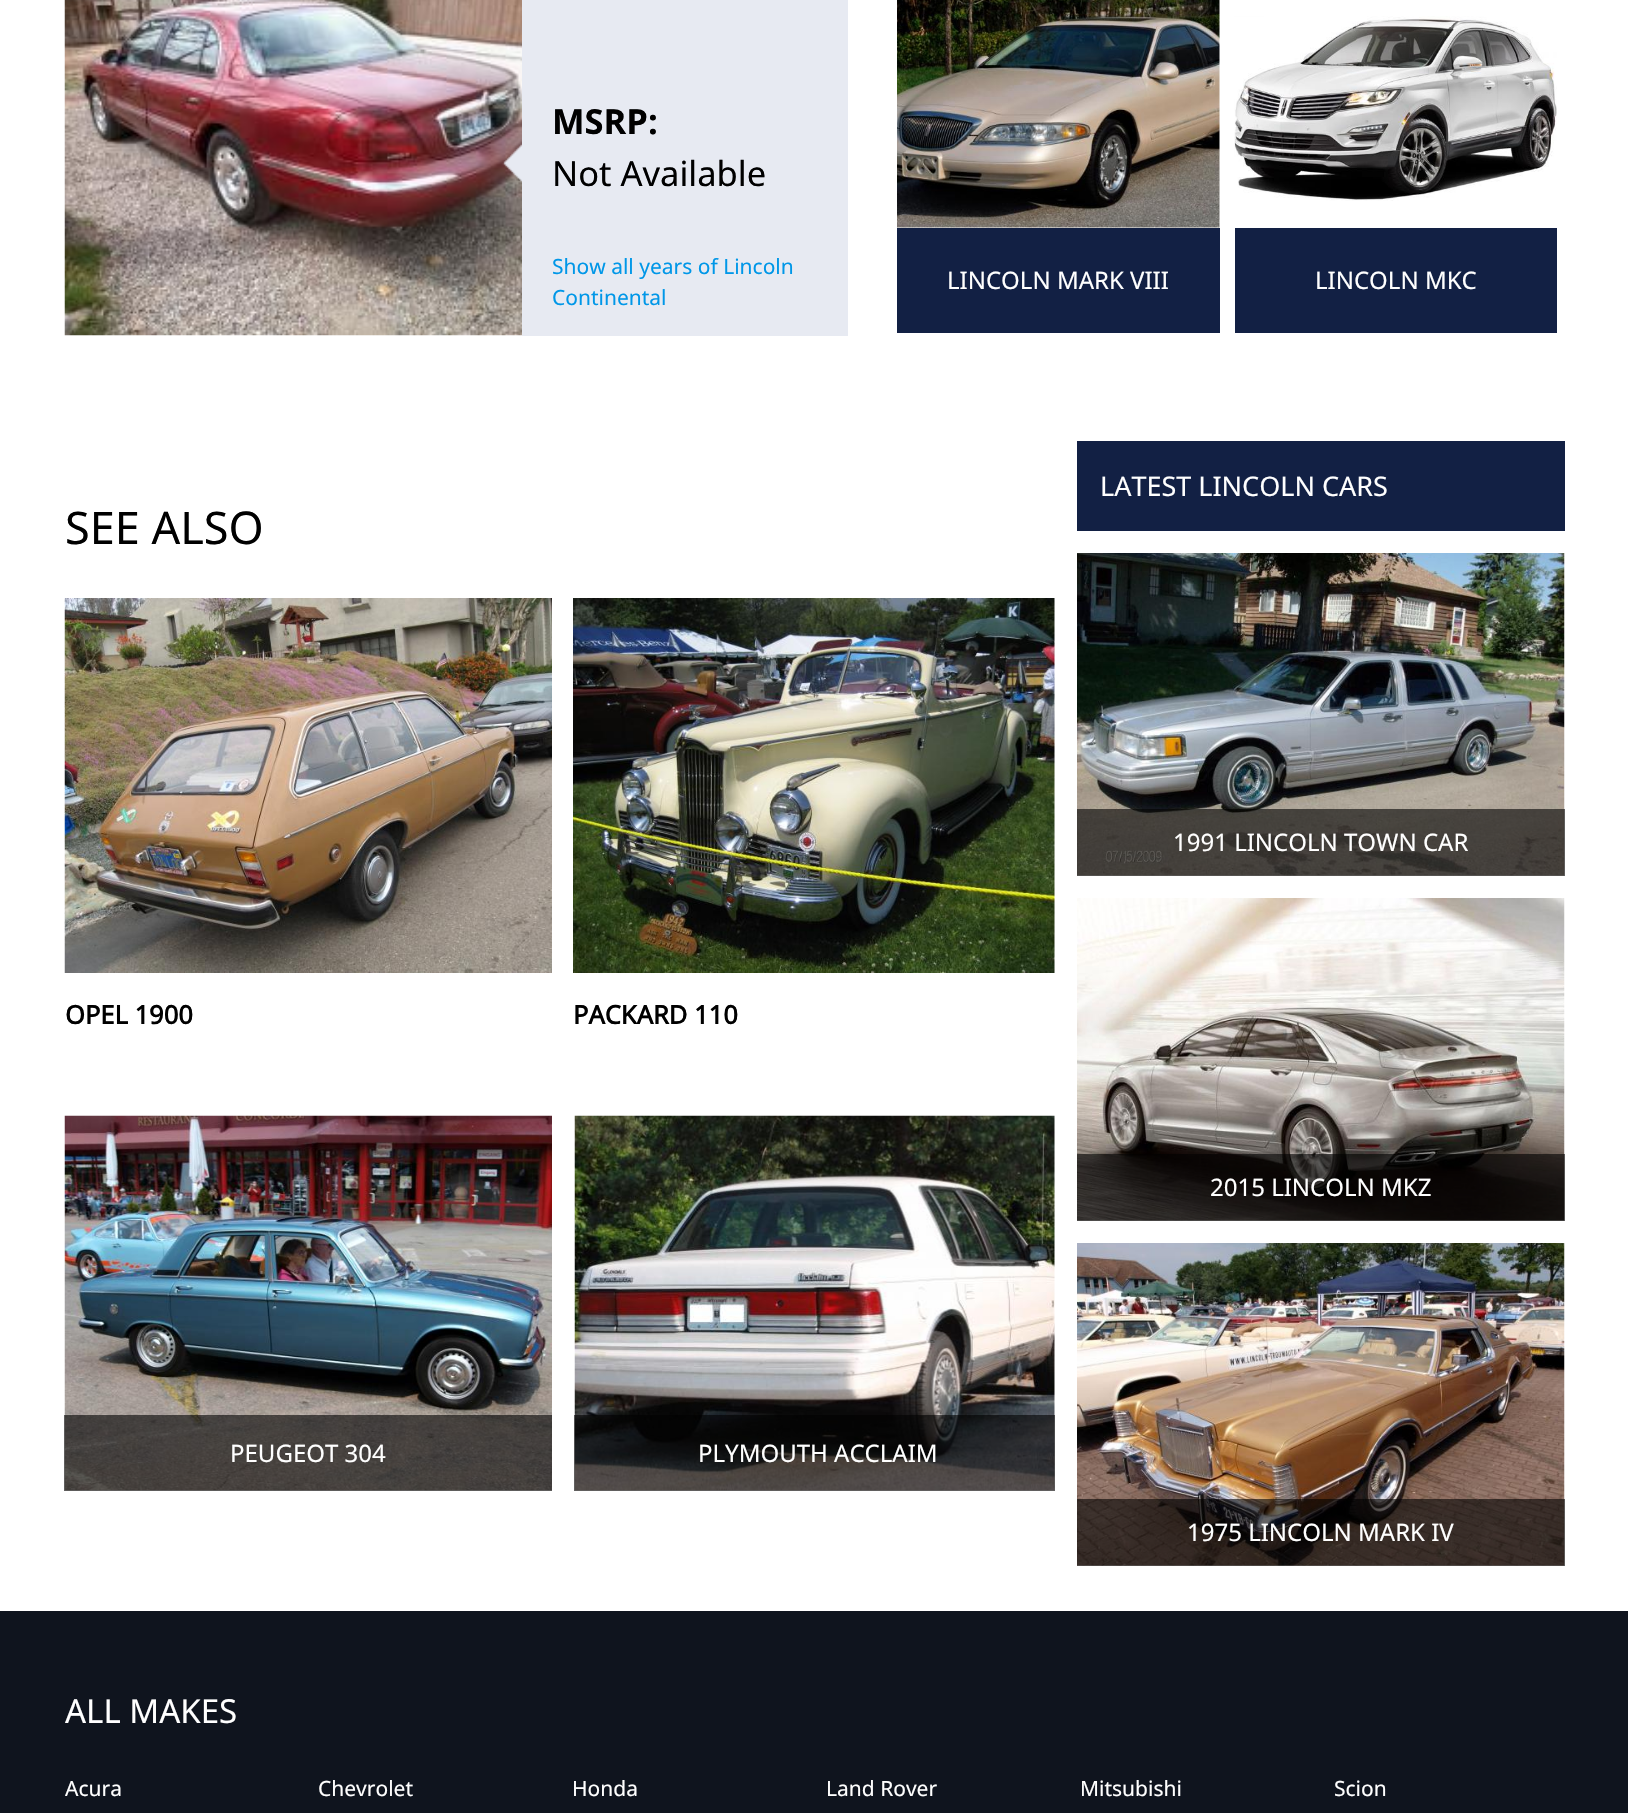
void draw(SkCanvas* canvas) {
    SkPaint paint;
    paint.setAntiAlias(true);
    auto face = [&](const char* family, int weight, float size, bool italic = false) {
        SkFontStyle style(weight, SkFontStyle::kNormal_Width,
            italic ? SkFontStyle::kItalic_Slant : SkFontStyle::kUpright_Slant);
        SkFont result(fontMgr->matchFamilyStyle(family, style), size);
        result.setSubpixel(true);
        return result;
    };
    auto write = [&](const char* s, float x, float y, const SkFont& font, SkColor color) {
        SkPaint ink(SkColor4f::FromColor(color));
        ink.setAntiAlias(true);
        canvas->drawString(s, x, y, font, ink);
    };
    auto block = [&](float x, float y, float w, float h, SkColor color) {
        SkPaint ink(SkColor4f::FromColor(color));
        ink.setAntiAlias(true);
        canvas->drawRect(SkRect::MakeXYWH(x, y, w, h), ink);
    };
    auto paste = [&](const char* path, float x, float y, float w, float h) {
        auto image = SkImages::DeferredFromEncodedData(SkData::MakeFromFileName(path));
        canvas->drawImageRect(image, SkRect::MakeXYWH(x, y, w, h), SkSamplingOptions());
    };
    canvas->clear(SK_ColorWHITE);
    paste("pic1.png", 64, 0, 458, 336);
    paste("pic2.png", 502, 144, 20, 39);
    block(522, 0, 326, 336, SkColorSetRGB(231, 234, 242));
    auto kFont1 = face("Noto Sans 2", 700, 34.5f);
    write("MSRP:", 552, 134, kFont1, SK_ColorBLACK);
    auto kFont2 = face("Noto Sans", 400, 34.5f);
    write("Not Available", 552, 186, kFont2, SK_ColorBLACK);
    auto kFont3 = face("Noto Sans", 400, 21);
    write("Show all years of Lincoln", 552, 274, kFont3, SkColorSetRGB(0, 151, 232));
    write("Continental", 552, 305, kFont3, SkColorSetRGB(0, 151, 232));
    paste("pic3.png", 897, 0, 323, 228);
    block(897, 228, 323, 105, SkColorSetRGB(18, 32, 68));
    auto kFont4 = face("Noto Sans", 400, 24);
    write("LINCOLN MARK VIII", 947, 289, kFont4, SK_ColorWHITE);
    paste("pic4.png", 1234, 16, 323, 185);
    block(1235, 228, 322, 105, SkColorSetRGB(18, 32, 68));
    write("LINCOLN MKC", 1315, 289, kFont4, SK_ColorWHITE);
    auto kFont5 = face("Noto Sans", 400, 45);
    write("SEE ALSO", 65, 544, kFont5, SK_ColorBLACK);
    paste("pic5.png", 64, 598, 488, 375);
    auto kFont6 = face("Noto Sans", 700, 25.5f);
    write("OPEL 1900", 65, 1024, kFont6, SK_ColorBLACK);
    paste("pic6.png", 573, 598, 482, 375);
    write("PACKARD 110", 573, 1024, kFont6, SK_ColorBLACK);
    paste("pic7.png", 64, 1115, 488, 376);
    block(64, 1415, 488, 76, SkColorSetARGB(153, 0, 0, 0));
    write("PEUGEOT 304", 230, 1462, kFont4, SK_ColorWHITE);
    paste("pic8.png", 574, 1115, 481, 376);
    block(574, 1415, 481, 76, SkColorSetARGB(153, 0, 0, 0));
    write("PLYMOUTH ACCLAIM", 698, 1462, kFont4, SK_ColorWHITE);
    block(1077, 441, 488, 90, SkColorSetRGB(18, 32, 68));
    auto kFont7 = face("Noto Sans", 400, 27);
    write("LATEST LINCOLN CARS", 1100, 496, kFont7, SK_ColorWHITE);
    paste("pic9.png", 1077, 553, 488, 323);
    block(1077, 809, 488, 67, SkColorSetARGB(153, 0, 0, 0));
    write("1991 LINCOLN TOWN CAR", 1173, 851, kFont4, SK_ColorWHITE);
    paste("pic10.png", 1077, 898, 488, 323);
    block(1077, 1154, 488, 67, SkColorSetARGB(153, 0, 0, 0));
    write("2015 LINCOLN MKZ", 1210, 1196, kFont4, SK_ColorWHITE);
    paste("pic11.png", 1077, 1243, 488, 323);
    block(1077, 1499, 488, 67, SkColorSetARGB(153, 0, 0, 0));
    write("1975 LINCOLN MARK IV", 1187, 1541, kFont4, SK_ColorWHITE);
    block(0, 1611, 1628, 202, SkColorSetRGB(15, 20, 30));
    auto kFont8 = face("Noto Sans", 400, 33);
    write("ALL MAKES", 65, 1723, kFont8, SK_ColorWHITE);
    write("Acura", 65, 1796, kFont3, SK_ColorWHITE);
    write("Chevrolet", 318, 1796, kFont3, SK_ColorWHITE);
    write("Honda", 572, 1796, kFont3, SK_ColorWHITE);
    write("Land Rover", 826, 1796, kFont3, SK_ColorWHITE);
    write("Mitsubishi", 1080, 1796, kFont3, SK_ColorWHITE);
    write("Scion", 1334, 1796, kFont3, SK_ColorWHITE);
}
